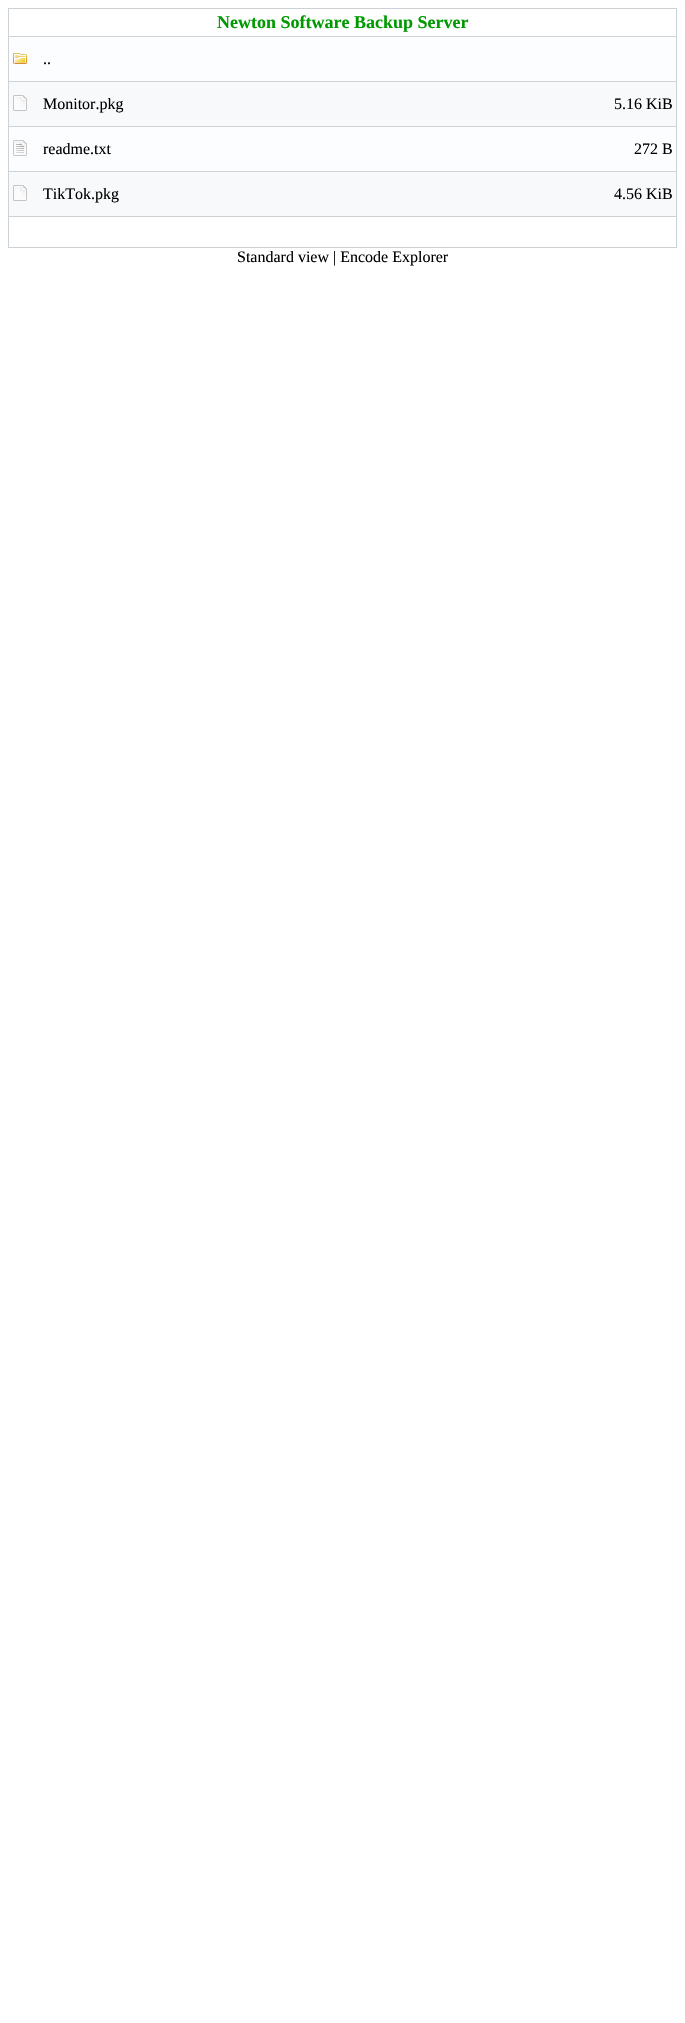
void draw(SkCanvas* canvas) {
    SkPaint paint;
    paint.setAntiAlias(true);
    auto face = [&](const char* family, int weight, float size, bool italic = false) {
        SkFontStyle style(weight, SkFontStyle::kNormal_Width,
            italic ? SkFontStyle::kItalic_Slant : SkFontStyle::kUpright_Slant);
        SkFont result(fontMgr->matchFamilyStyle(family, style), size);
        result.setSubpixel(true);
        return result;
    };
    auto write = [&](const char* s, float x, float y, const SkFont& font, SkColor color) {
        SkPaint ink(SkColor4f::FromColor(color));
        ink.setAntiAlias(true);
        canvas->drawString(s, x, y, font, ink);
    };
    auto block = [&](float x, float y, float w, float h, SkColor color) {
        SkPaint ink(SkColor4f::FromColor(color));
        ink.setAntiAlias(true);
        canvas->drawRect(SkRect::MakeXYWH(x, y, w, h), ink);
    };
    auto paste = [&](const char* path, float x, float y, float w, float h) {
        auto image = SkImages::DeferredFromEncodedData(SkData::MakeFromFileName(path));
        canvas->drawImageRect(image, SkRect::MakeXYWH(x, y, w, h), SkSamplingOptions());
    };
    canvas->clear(SK_ColorWHITE);
    paint.setStyle(SkPaint::kStroke_Style);
    paint.setStrokeWidth(1);
    paint.setColor(SkColorSetRGB(205, 210, 214));
    canvas->drawRect(SkRect::MakeXYWH(8.5f, 8.5f, 668, 239), paint);
    auto kFont1 = face("Liberation Serif", 700, 18);
    write("Newton Software Backup Server", 217, 28, kFont1, SkColorSetRGB(0, 153, 0));
    block(9, 37, 667, 44, SkColorSetRGB(252, 253, 254));
    paste("pic1.png", 13, 53, 14, 11);
    block(9, 36, 667, 1, SkColorSetRGB(205, 210, 214));
    auto kFont2 = face("Liberation Serif", 400, 16);
    write("..", 43, 64, kFont2, SK_ColorBLACK);
    block(9, 82, 667, 44, SkColorSetRGB(248, 249, 250));
    paste("pic2.png", 13, 95, 14, 16);
    block(9, 81, 667, 1, SkColorSetRGB(205, 210, 214));
    write("Monitor.pkg", 43, 109, kFont2, SK_ColorBLACK);
    write("5.16 KiB", 614, 109, kFont2, SK_ColorBLACK);
    block(9, 127, 667, 44, SkColorSetRGB(252, 253, 254));
    paste("pic3.png", 13, 140, 14, 16);
    block(9, 126, 667, 1, SkColorSetRGB(205, 210, 214));
    write("readme.txt", 43, 154, kFont2, SK_ColorBLACK);
    write("272 B", 634, 154, kFont2, SK_ColorBLACK);
    block(9, 172, 667, 44, SkColorSetRGB(248, 249, 250));
    paste("pic2.png", 13, 185, 14, 16);
    block(9, 171, 667, 1, SkColorSetRGB(205, 210, 214));
    block(9, 216, 667, 1, SkColorSetRGB(205, 210, 214));
    write("TikTok.pkg", 43, 199, kFont2, SK_ColorBLACK);
    write("4.56 KiB", 614, 199, kFont2, SK_ColorBLACK);
    write("Standard view | Encode Explorer", 237, 262, kFont2, SK_ColorBLACK);
}
